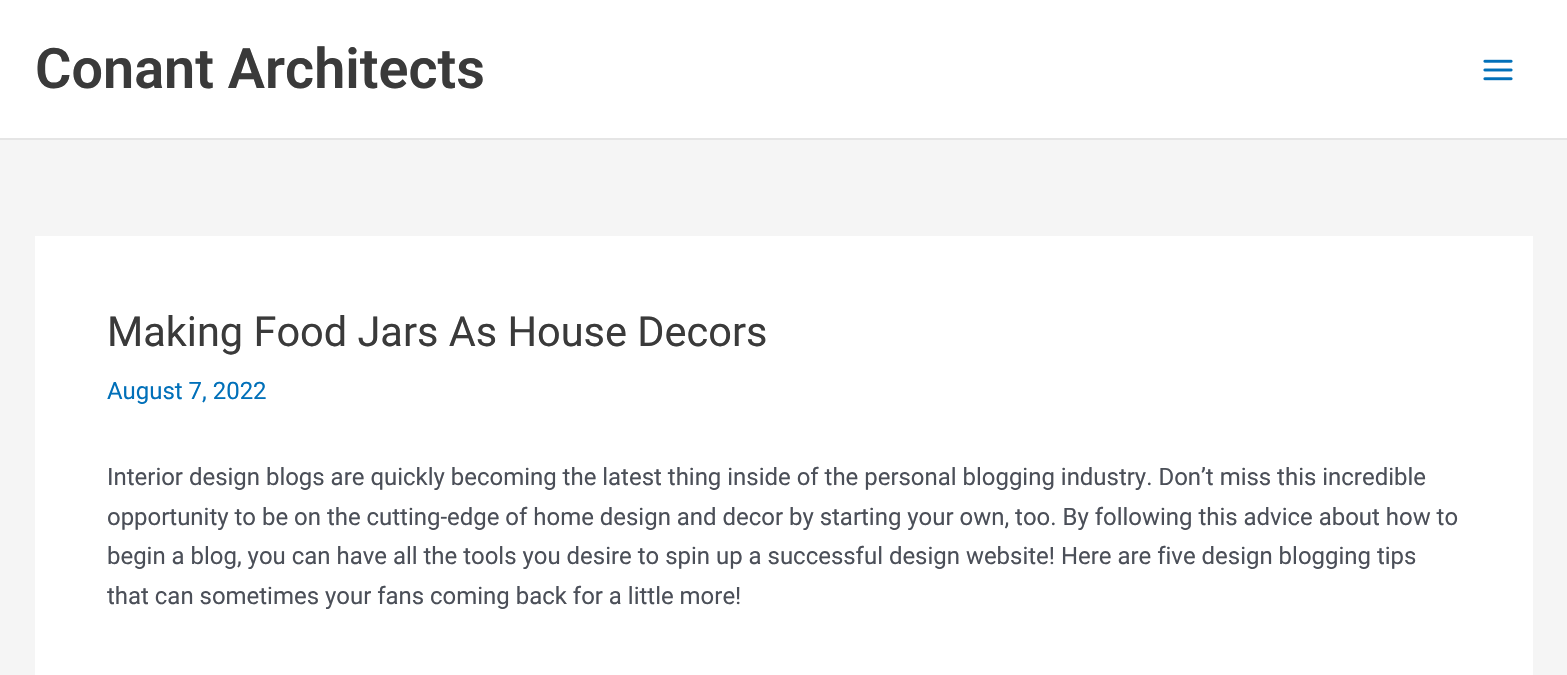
void draw(SkCanvas* canvas) {
    SkPaint paint;
    paint.setAntiAlias(true);
    auto face = [&](const char* family, int weight, float size, bool italic = false) {
        SkFontStyle style(weight, SkFontStyle::kNormal_Width,
            italic ? SkFontStyle::kItalic_Slant : SkFontStyle::kUpright_Slant);
        SkFont result(fontMgr->matchFamilyStyle(family, style), size);
        result.setSubpixel(true);
        return result;
    };
    auto write = [&](const char* s, float x, float y, const SkFont& font, SkColor color) {
        SkPaint ink(SkColor4f::FromColor(color));
        ink.setAntiAlias(true);
        canvas->drawString(s, x, y, font, ink);
    };
    auto block = [&](float x, float y, float w, float h, SkColor color) {
        SkPaint ink(SkColor4f::FromColor(color));
        ink.setAntiAlias(true);
        canvas->drawRect(SkRect::MakeXYWH(x, y, w, h), ink);
    };
    auto paste = [&](const char* path, float x, float y, float w, float h) {
        auto image = SkImages::DeferredFromEncodedData(SkData::MakeFromFileName(path));
        canvas->drawImageRect(image, SkRect::MakeXYWH(x, y, w, h), SkSamplingOptions());
    };
    canvas->clear(SkColorSetRGB(245, 245, 245));
    block(0, 0, 1567, 138, SK_ColorWHITE);
    block(0, 138, 1567, 2, SkColorSetRGB(229, 229, 229));
    auto kFont1 = face("Roboto", 600, 55.75f);
    write("Conant Architects", 35, 88, kFont1, SkColorSetRGB(58, 58, 58));
    paste("pic1.png", 1483, 59, 30, 22);
    block(35, 236, 1498, 439, SK_ColorWHITE);
    auto kFont2 = face("Roboto", 400, 41.5f);
    write("Making Food Jars As House Decors", 107, 346, kFont2, SkColorSetRGB(58, 58, 58));
    auto kFont3 = face("Roboto", 400, 23.95f);
    write("August 7, 2022", 107, 399, kFont3, SkColorSetRGB(1, 112, 185));
    write("Interior design blogs are quickly becoming the latest thing inside of the personal blogging industry. Don’t miss this incredible", 107, 485, kFont3, SkColorSetRGB(75, 79, 88));
    write("opportunity to be on the cutting-edge of home design and decor by starting your own, too. By following this advice about how to", 107, 525, kFont3, SkColorSetRGB(75, 79, 88));
    write("begin a blog, you can have all the tools you desire to spin up a successful design website! Here are five design blogging tips", 107, 564, kFont3, SkColorSetRGB(75, 79, 88));
    write("that can sometimes your fans coming back for a little more!", 107, 604, kFont3, SkColorSetRGB(75, 79, 88));
}
